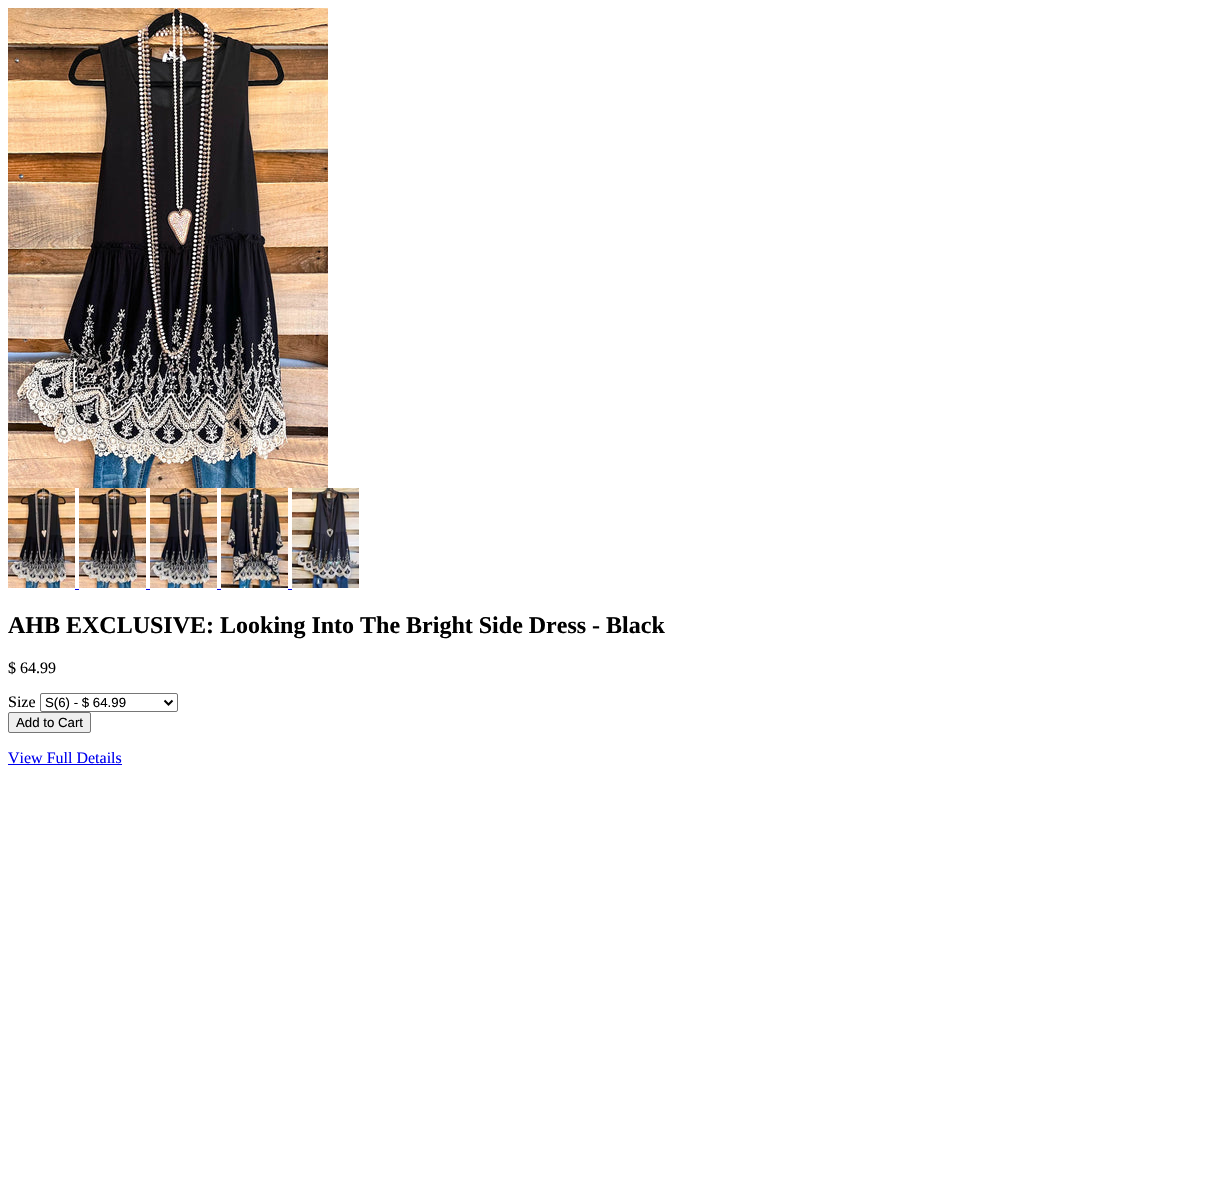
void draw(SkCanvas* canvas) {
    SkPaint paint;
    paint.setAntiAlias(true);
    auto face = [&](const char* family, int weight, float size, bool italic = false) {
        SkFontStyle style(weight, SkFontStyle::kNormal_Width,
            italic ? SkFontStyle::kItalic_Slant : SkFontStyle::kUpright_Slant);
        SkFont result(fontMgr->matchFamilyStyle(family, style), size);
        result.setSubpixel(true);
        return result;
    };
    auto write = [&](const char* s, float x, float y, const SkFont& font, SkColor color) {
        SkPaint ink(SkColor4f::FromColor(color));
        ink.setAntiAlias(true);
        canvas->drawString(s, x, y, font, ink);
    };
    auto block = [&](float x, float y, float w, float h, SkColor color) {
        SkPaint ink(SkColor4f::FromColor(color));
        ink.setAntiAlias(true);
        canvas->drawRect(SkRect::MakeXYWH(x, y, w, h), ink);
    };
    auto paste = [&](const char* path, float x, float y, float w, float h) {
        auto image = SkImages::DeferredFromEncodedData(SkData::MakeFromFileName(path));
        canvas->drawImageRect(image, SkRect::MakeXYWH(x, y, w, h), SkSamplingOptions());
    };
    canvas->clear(SK_ColorWHITE);
    paste("pic1.png", 8, 8, 320, 480);
    paste("pic2.png", 8, 488, 67, 100);
    paste("pic2.png", 79, 488, 67, 100);
    paste("pic3.png", 150, 488, 67, 100);
    paste("pic4.png", 221, 488, 67, 100);
    paste("pic5.png", 292, 488, 67, 100);
    block(75, 589, 4, 1, SkColorSetRGB(0, 0, 238));
    block(146, 589, 4, 1, SkColorSetRGB(0, 0, 238));
    block(217, 589, 4, 1, SkColorSetRGB(0, 0, 238));
    block(288, 589, 4, 1, SkColorSetRGB(0, 0, 238));
    auto kFont1 = face("Liberation Serif", 700, 24);
    write("AHB EXCLUSIVE: Looking Into The Bright Side Dress - Black", 8, 633, kFont1, SK_ColorBLACK);
    auto kFont2 = face("Liberation Serif", 400, 16);
    write("$ 64.99", 8, 673, kFont2, SK_ColorBLACK);
    write("Size", 8, 707, kFont2, SK_ColorBLACK);
    paint.setStyle(SkPaint::kStroke_Style);
    paint.setStrokeWidth(1);
    paint.setColor(SkColorSetRGB(118, 118, 118));
    canvas->drawRoundRect(SkRect::MakeXYWH(40.5f, 693.5f, 137, 18), 1.5f, 1.5f, paint);
    paint.setStrokeWidth(2);
    paint.setColor(SK_ColorBLACK);
    canvas->drawPath(SkPathBuilder().moveTo(164.5f, 700.5f).lineTo(168.5f, 704.5f).lineTo(172.5f, 700.5f).detach(), paint);
    auto kFont3 = face("Liberation Sans", 400, 13.25f);
    write("S(6) - $ 64.99", 45, 707, kFont3, SK_ColorBLACK);
    paint.setStyle(SkPaint::kFill_Style);
    paint.setColor(SkColorSetRGB(239, 239, 239));
    canvas->drawRoundRect(SkRect::MakeXYWH(8.5f, 712.5f, 82, 20), 1.5f, 1.5f, paint);
    paint.setStyle(SkPaint::kStroke_Style);
    paint.setStrokeWidth(1);
    paint.setColor(SkColorSetRGB(118, 118, 118));
    canvas->drawRoundRect(SkRect::MakeXYWH(8.5f, 712.5f, 82, 20), 1.5f, 1.5f, paint);
    write("Add to Cart", 16, 727, kFont3, SK_ColorBLACK);
    write("View Full Details", 8, 763, kFont2, SkColorSetRGB(0, 0, 238));
    block(8, 764, 114, 1, SkColorSetRGB(0, 0, 238));
}
